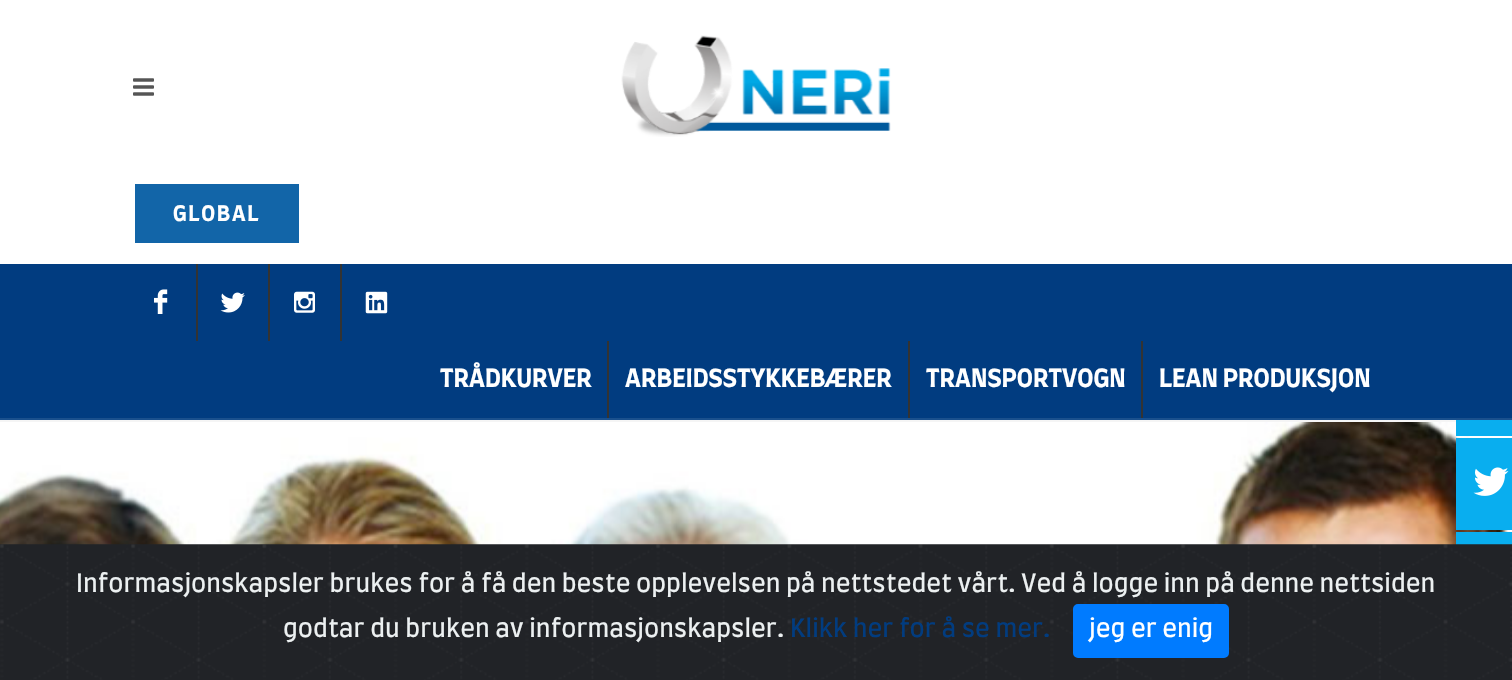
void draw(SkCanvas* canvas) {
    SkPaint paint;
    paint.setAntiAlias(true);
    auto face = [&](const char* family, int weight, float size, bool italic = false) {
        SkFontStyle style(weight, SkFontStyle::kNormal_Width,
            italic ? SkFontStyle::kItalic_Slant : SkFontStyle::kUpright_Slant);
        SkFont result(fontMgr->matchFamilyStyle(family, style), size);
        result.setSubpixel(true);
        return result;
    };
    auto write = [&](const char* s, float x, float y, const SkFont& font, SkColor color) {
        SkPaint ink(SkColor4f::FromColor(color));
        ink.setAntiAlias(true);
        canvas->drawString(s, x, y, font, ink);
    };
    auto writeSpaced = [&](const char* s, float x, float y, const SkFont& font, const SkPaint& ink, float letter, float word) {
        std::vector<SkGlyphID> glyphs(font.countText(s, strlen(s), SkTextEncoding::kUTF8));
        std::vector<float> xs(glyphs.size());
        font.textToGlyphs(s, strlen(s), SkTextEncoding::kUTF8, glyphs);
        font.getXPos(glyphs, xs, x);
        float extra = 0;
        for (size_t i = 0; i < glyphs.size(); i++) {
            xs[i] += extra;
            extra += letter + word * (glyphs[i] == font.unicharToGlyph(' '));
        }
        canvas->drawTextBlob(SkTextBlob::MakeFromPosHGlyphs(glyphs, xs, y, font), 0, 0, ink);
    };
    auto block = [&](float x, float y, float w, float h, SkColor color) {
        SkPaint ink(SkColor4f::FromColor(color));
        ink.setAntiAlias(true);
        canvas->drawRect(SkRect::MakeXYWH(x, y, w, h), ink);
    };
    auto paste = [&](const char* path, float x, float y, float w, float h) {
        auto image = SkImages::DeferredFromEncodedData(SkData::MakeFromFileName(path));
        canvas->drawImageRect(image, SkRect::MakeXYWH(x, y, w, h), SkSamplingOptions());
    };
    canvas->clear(SK_ColorWHITE);
    block(0, 420, 1456, 2, SkColorSetRGB(245, 245, 245));
    paste("pic1.png", 133, 78, 21, 18);
    paste("pic2.png", 621, 35, 270, 102);
    block(135, 184, 164, 59, SkColorSetRGB(18, 101, 168));
    auto kFont1 = face("Farro", 700, 21);
    paint.setColor(SK_ColorWHITE);
    writeSpaced("GLOBAL", 173, 221, kFont1, paint, 1.75f, 0);
    block(0, 264, 1512, 154, SkColorSetRGB(1, 60, 128));
    block(0, 418, 1512, 2, SkColorSetRGB(26, 80, 141));
    paste("pic3.png", 154, 289, 14, 25);
    block(196, 264, 2, 77, SkColorSetRGB(51, 51, 51));
    paste("pic4.png", 220, 292, 25, 21);
    block(268, 264, 2, 77, SkColorSetRGB(51, 51, 51));
    paste("pic5.png", 294, 291, 21, 22);
    block(340, 264, 2, 77, SkColorSetRGB(51, 51, 51));
    paste("pic6.png", 365, 291, 23, 23);
    auto kFont2 = face("Farro", 700, 24.5f);
    write("TRÅDKURVER", 440, 387, kFont2, SK_ColorWHITE);
    block(607, 341, 2, 77, SkColorSetRGB(51, 51, 51));
    write("ARBEIDSSTYKKEBÆRER", 625, 387, kFont2, SK_ColorWHITE);
    block(908, 341, 2, 77, SkColorSetRGB(51, 51, 51));
    write("TRANSPORTVOGN", 926, 387, kFont2, SK_ColorWHITE);
    block(1141, 341, 2, 77, SkColorSetRGB(51, 51, 51));
    write("LEAN PRODUKSJON", 1159, 387, kFont2, SK_ColorWHITE);
    paste("pic7.png", 0, 422, 1512, 123);
    block(1456, 420, 56, 16, SkColorSetRGB(9, 174, 239));
    block(1456, 438, 56, 92, SkColorSetRGB(9, 174, 239));
    paste("pic8.png", 1473, 467, 36, 29);
    block(1456, 532, 56, 13, SkColorSetRGB(9, 174, 239));
    paste("pic9.png", 0, 544, 1512, 136);
    auto kFont3 = face("Farro", 400, 24.5f);
    write("Informasjonskapsler brukes for å få den beste opplevelsen på nettstedet vårt. Ved å logge inn på denne nettsiden", 76, 592, kFont3, SkColorSetRGB(236, 240, 241));
    write("godtar du bruken av informasjonskapsler.", 283, 637, kFont3, SkColorSetRGB(236, 240, 241));
    write("Klikk her for å se mer.", 790, 637, kFont3, SkColorSetRGB(1, 60, 128));
    paint.setColor(SkColorSetRGB(0, 123, 255));
    canvas->drawRoundRect(SkRect::MakeXYWH(1074, 605, 154, 52), 4, 4, paint);
    paint.setStyle(SkPaint::kStroke_Style);
    paint.setStrokeWidth(2);
    canvas->drawRoundRect(SkRect::MakeXYWH(1074, 605, 154, 52), 4, 4, paint);
    write("jeg er enig", 1089, 637, kFont3, SK_ColorWHITE);
}
